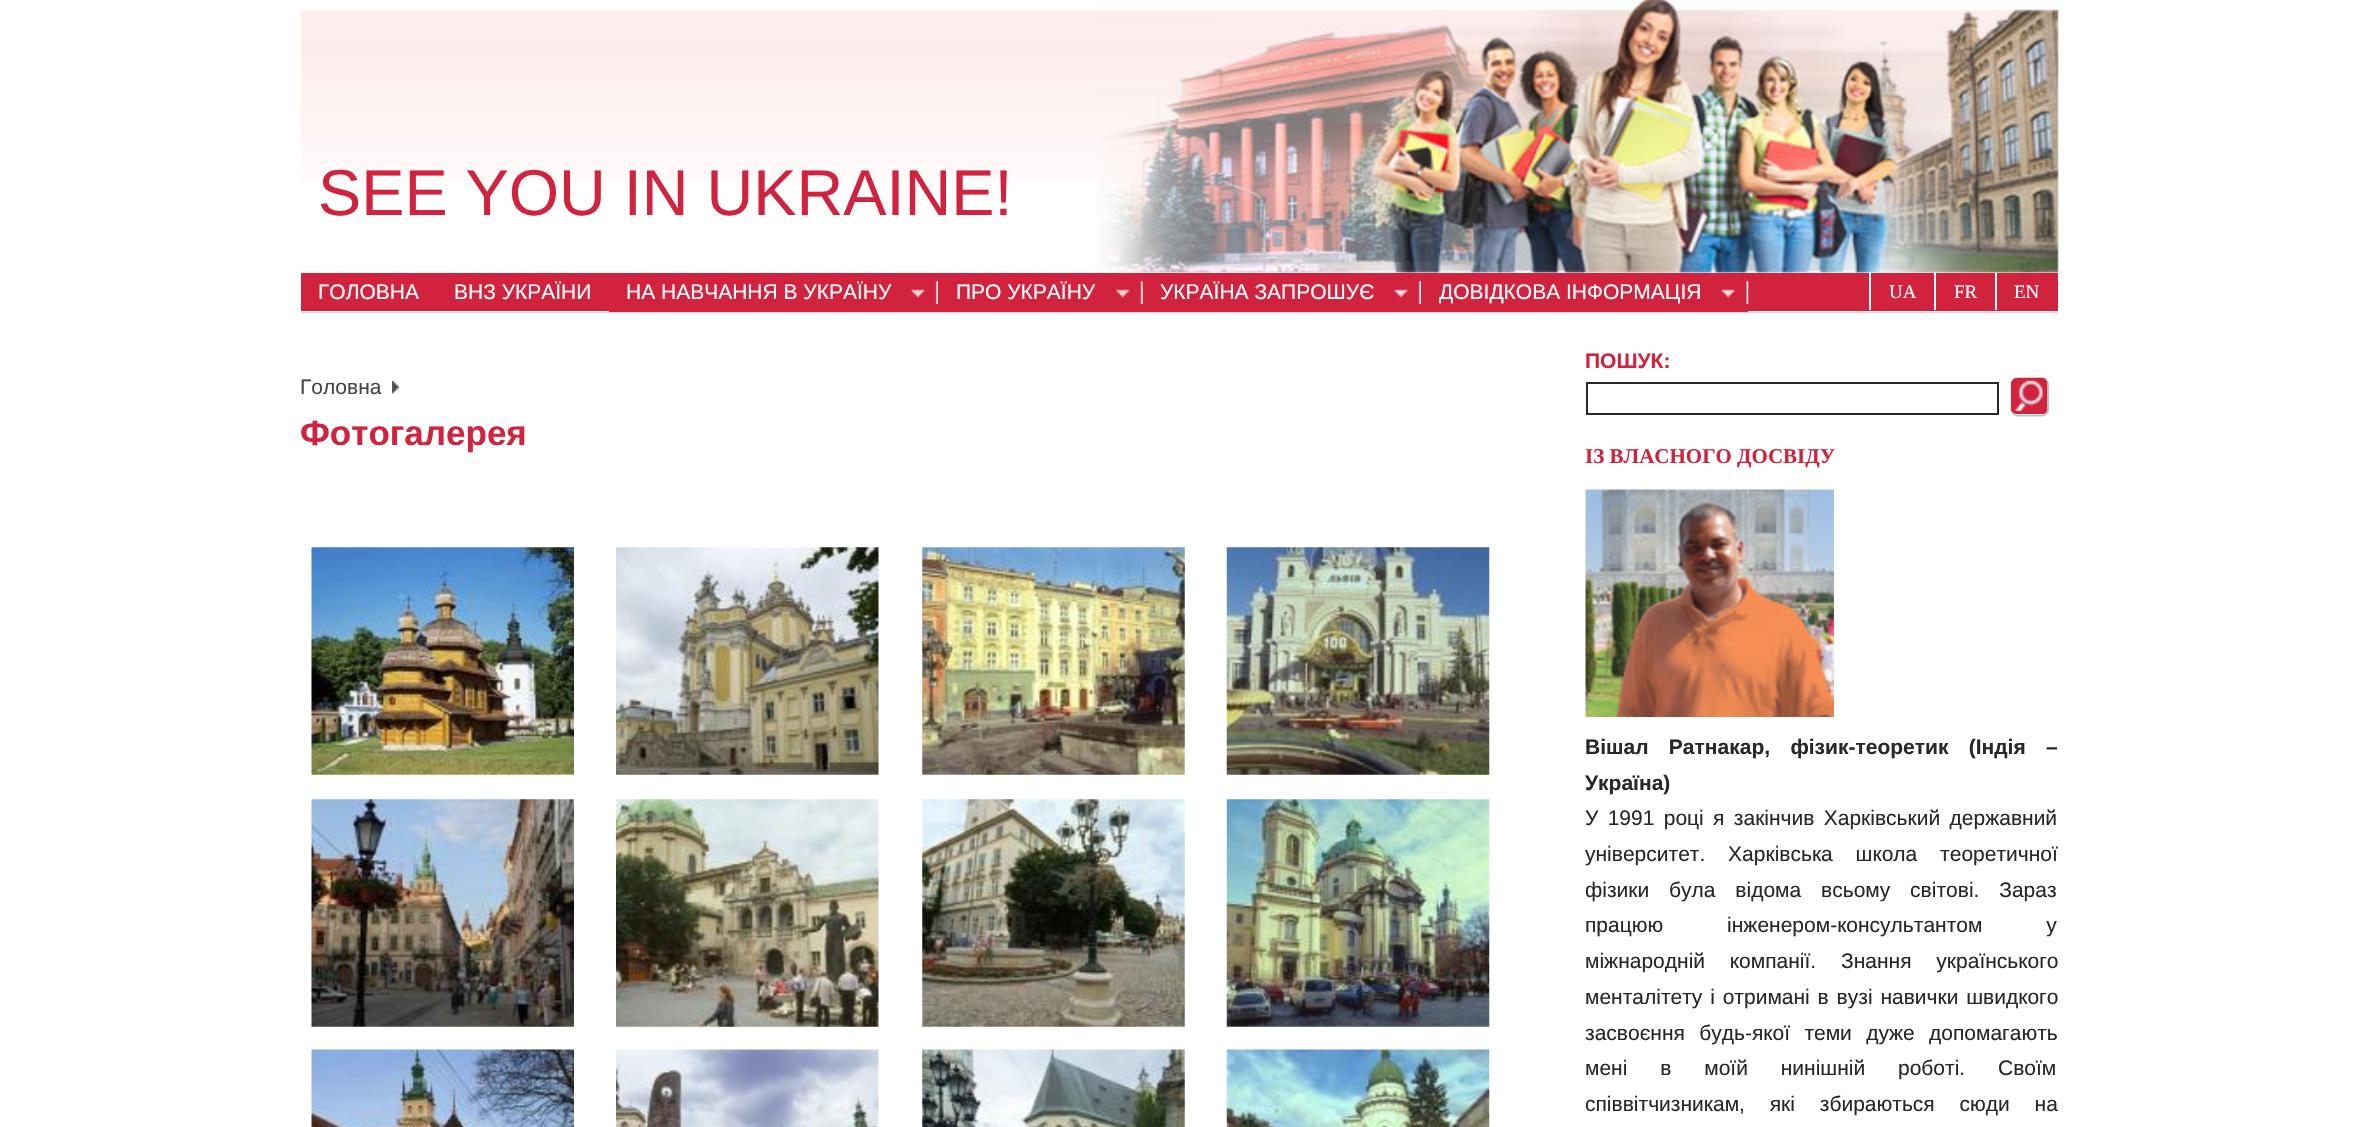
void draw(SkCanvas* canvas) {
    SkPaint paint;
    paint.setAntiAlias(true);
    auto face = [&](const char* family, int weight, float size, bool italic = false) {
        SkFontStyle style(weight, SkFontStyle::kNormal_Width,
            italic ? SkFontStyle::kItalic_Slant : SkFontStyle::kUpright_Slant);
        SkFont result(fontMgr->matchFamilyStyle(family, style), size);
        result.setSubpixel(true);
        return result;
    };
    auto write = [&](const char* s, float x, float y, const SkFont& font, SkColor color) {
        SkPaint ink(SkColor4f::FromColor(color));
        ink.setAntiAlias(true);
        canvas->drawString(s, x, y, font, ink);
    };
    auto writeSpaced = [&](const char* s, float x, float y, const SkFont& font, const SkPaint& ink, float letter, float word) {
        std::vector<SkGlyphID> glyphs(font.countText(s, strlen(s), SkTextEncoding::kUTF8));
        std::vector<float> xs(glyphs.size());
        font.textToGlyphs(s, strlen(s), SkTextEncoding::kUTF8, glyphs);
        font.getXPos(glyphs, xs, x);
        float extra = 0;
        for (size_t i = 0; i < glyphs.size(); i++) {
            xs[i] += extra;
            extra += letter + word * (glyphs[i] == font.unicharToGlyph(' '));
        }
        canvas->drawTextBlob(SkTextBlob::MakeFromPosHGlyphs(glyphs, xs, y, font), 0, 0, ink);
    };
    auto block = [&](float x, float y, float w, float h, SkColor color) {
        SkPaint ink(SkColor4f::FromColor(color));
        ink.setAntiAlias(true);
        canvas->drawRect(SkRect::MakeXYWH(x, y, w, h), ink);
    };
    auto paste = [&](const char* path, float x, float y, float w, float h) {
        auto image = SkImages::DeferredFromEncodedData(SkData::MakeFromFileName(path));
        canvas->drawImageRect(image, SkRect::MakeXYWH(x, y, w, h), SkSamplingOptions());
    };
    canvas->clear(SK_ColorWHITE);
    paste("pic1.png", 301, 9, 1759, 172);
    paste("pic2.png", 1096, 0, 964, 273);
    auto kFont1 = face("Liberation Sans", 400, 64.75f);
    write("SEE YOU IN UKRAINE!", 318, 215, kFont1, SkColorSetRGB(209, 34, 62));
    block(301, 273, 1757, 40, SkColorSetRGB(209, 34, 62));
    paste("pic3.png", 301, 311, 1757, 2);
    auto kFont2 = face("Liberation Sans", 400, 21);
    write("ГОЛОВНА", 318, 299, kFont2, SK_ColorWHITE);
    write("ВНЗ УКРАЇНИ", 454, 299, kFont2, SK_ColorWHITE);
    block(609, 311, 1139, 1, SkColorSetRGB(209, 34, 62));
    paste("pic4.png", 911, 281, 27, 23);
    write("НА НАВЧАННЯ В УКРАЇНУ", 626, 299, kFont2, SK_ColorWHITE);
    paste("pic5.png", 1116, 281, 27, 23);
    write("ПРО УКРАЇНУ", 956, 299, kFont2, SK_ColorWHITE);
    paste("pic6.png", 1394, 281, 27, 23);
    write("УКРАЇНА ЗАПРОШУЄ", 1160, 299, kFont2, SK_ColorWHITE);
    paste("pic7.png", 1722, 281, 27, 23);
    write("ДОВІДКОВА ІНФОРМАЦІЯ", 1439, 299, kFont2, SK_ColorWHITE);
    block(1869, 273, 2, 37, SK_ColorWHITE);
    auto kFont3 = face("Liberation Serif", 400, 19);
    write("UA", 1889, 298, kFont3, SK_ColorWHITE);
    block(1934, 273, 2, 37, SK_ColorWHITE);
    write("FR", 1954, 298, kFont3, SK_ColorWHITE);
    block(1995, 273, 2, 37, SK_ColorWHITE);
    write("EN", 2014, 298, kFont3, SK_ColorWHITE);
    write("Головна", 300, 394, kFont2, SkColorSetRGB(71, 71, 71));
    paste("pic8.png", 392, 381, 7, 13);
    auto kFont4 = face("Liberation Sans", 700, 35);
    write("Фотогалерея", 300, 445, kFont4, SkColorSetRGB(209, 34, 62));
    paste("pic9.png", 311, 547, 263, 228);
    paste("pic10.png", 616, 547, 263, 228);
    paste("pic11.png", 922, 547, 263, 228);
    paste("pic12.png", 1226, 547, 264, 228);
    paste("pic13.png", 311, 799, 263, 228);
    paste("pic14.png", 616, 799, 263, 228);
    paste("pic15.png", 922, 799, 263, 228);
    paste("pic16.png", 1226, 799, 264, 228);
    paste("pic17.png", 311, 1049, 263, 78);
    paste("pic18.png", 616, 1049, 263, 78);
    paste("pic19.png", 922, 1049, 263, 78);
    paste("pic20.png", 1226, 1049, 264, 78);
    auto kFont5 = face("Liberation Sans", 700, 21);
    write("ПОШУК:", 1585, 368, kFont5, SkColorSetRGB(209, 34, 62));
    paint.setStyle(SkPaint::kStroke_Style);
    paint.setStrokeWidth(2);
    paint.setColor(SkColorSetRGB(40, 40, 40));
    canvas->drawRect(SkRect::MakeXYWH(1587, 383, 411, 31), paint);
    paint.setStyle(SkPaint::kFill_Style);
    paint.setColor(SkColorSetRGB(193, 189, 188));
    canvas->drawPath(SkPathBuilder(SkPathFillType::kEvenOdd).moveTo(2018, 378).lineTo(2042, 378).cubicTo(2046, 378, 2049, 381, 2049, 385).lineTo(2049, 409.5f).cubicTo(2049, 413.5f, 2046, 416.5f, 2042, 416.5f).lineTo(2018, 416.5f).cubicTo(2014, 416.5f, 2011, 413.5f, 2011, 409.5f).lineTo(2011, 385).cubicTo(2011, 381, 2014, 378, 2018, 378).close().moveTo(2018, 378).lineTo(2042, 378).cubicTo(2045, 378, 2047.5f, 381, 2047.5f, 385).lineTo(2047.5f, 409.5f).cubicTo(2047.5f, 412.5f, 2045, 415, 2042, 415).lineTo(2018, 415).cubicTo(2014, 415, 2011, 412.5f, 2011, 409.5f).lineTo(2011, 385).cubicTo(2011, 381, 2014, 378, 2018, 378).close().detach(), paint);
    paste("pic21.png", 2010, 377, 38, 38);
    auto kFont6 = face("Liberation Serif", 700, 21);
    write("ІЗ ВЛАСНОГО ДОСВІДУ", 1585, 463, kFont6, SkColorSetRGB(209, 34, 62));
    paste("pic22.png", 1585, 489, 249, 228);
    paint.setColor(SkColorSetRGB(40, 40, 40));
    writeSpaced("Вішал Ратнакар, фізик-теоретик (Індія –", 1585, 754, kFont5, paint, 0, 14.5f);
    write("Україна)", 1585, 790, kFont5, SkColorSetRGB(40, 40, 40));
    writeSpaced("У 1991 році я закінчив Харківський державний", 1585, 825, kFont2, paint, 0, 3.5f);
    writeSpaced("університет. Харківська школа теоретичної", 1585, 861, kFont2, paint, 0, 17);
    writeSpaced("фізики була відома всьому світові. Зараз", 1585, 897, kFont2, paint, 0, 14);
    writeSpaced("працюю інженером-консультантом у", 1585, 932, kFont2, paint, 0, 58);
    writeSpaced("міжнародній компанії. Знання українського", 1585, 968, kFont2, paint, 0, 19);
    writeSpaced("менталітету і отримані в вузі навички швидкого", 1585, 1004, kFont2, paint, 0, 2);
    writeSpaced("засвоєння будь-якої теми дуже допомагають", 1585, 1040, kFont2, paint, 0, 8.5f);
    writeSpaced("мені в моїй нинішній роботі. Своїм", 1585, 1075, kFont2, paint, 0, 27);
    writeSpaced("співвітчизникам, які збираються сюди на", 1585, 1111, kFont2, paint, 0, 19);
}
